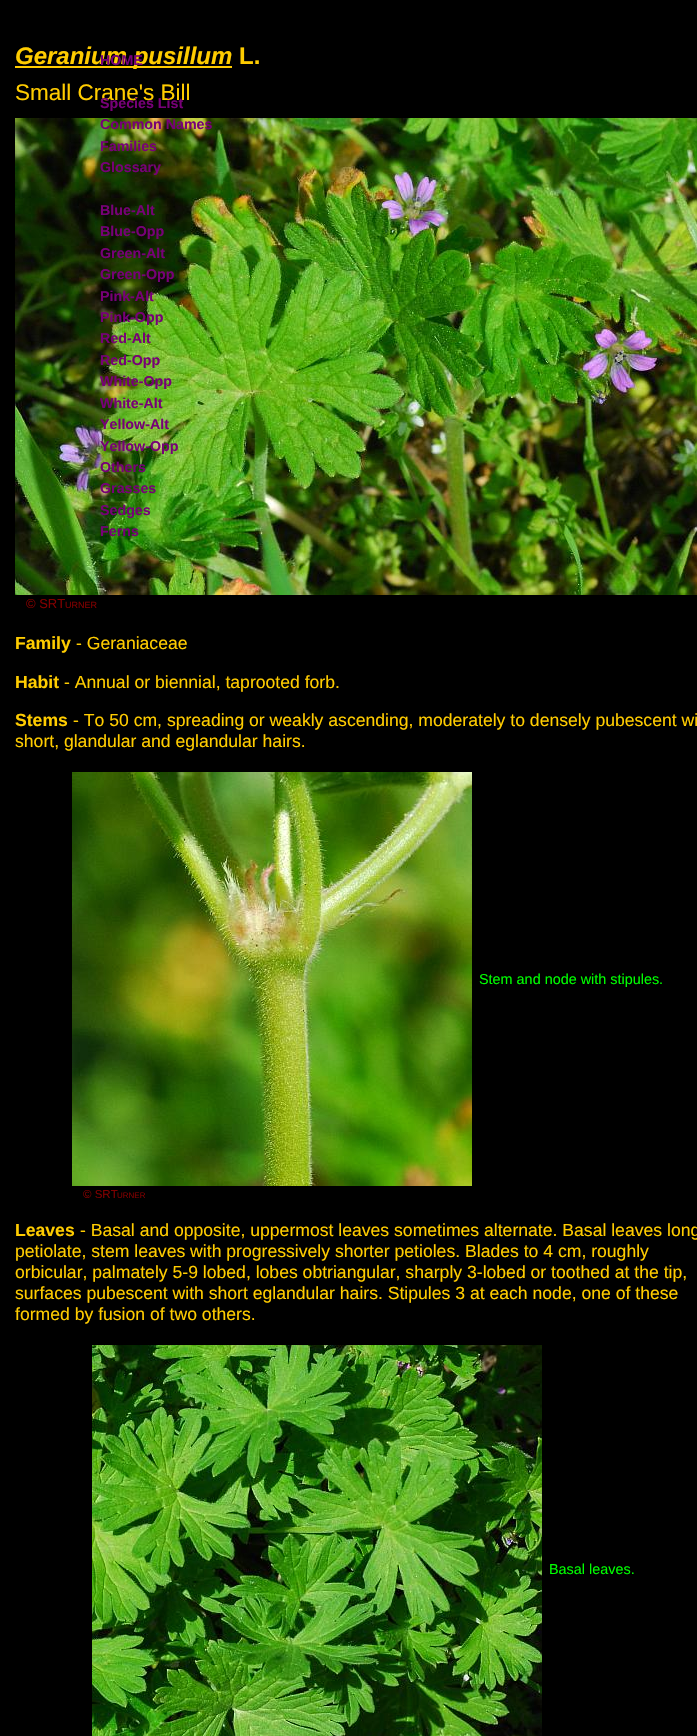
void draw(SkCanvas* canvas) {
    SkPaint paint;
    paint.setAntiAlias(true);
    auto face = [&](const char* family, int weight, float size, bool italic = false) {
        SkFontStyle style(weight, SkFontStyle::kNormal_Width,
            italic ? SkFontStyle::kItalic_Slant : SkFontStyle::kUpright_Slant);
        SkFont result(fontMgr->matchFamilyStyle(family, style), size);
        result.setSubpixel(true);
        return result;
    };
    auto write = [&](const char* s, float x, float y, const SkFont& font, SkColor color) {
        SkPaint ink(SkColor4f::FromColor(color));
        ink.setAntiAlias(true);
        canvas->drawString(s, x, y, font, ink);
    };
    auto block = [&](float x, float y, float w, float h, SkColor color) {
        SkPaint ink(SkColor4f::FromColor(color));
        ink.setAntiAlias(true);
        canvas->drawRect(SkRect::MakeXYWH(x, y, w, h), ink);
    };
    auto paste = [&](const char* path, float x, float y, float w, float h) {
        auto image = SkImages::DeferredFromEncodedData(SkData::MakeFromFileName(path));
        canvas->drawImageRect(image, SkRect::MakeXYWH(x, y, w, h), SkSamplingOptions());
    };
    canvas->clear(SK_ColorBLACK);
    block(15, 66, 217, 2, SkColorSetRGB(255, 204, 0));
    auto kFont1 = face("Liberation Sans", 700, 24, true);
    write("Geranium pusillum", 15, 64, kFont1, SkColorSetRGB(255, 204, 0));
    auto kFont2 = face("Liberation Sans", 700, 24);
    write("L.", 239, 64, kFont2, SkColorSetRGB(255, 204, 0));
    auto kFont3 = face("Liberation Sans", 400, 22.5f);
    write("Small Crane's Bill", 15, 100, kFont3, SkColorSetRGB(255, 204, 0));
    paste("pic1.png", 15, 118, 682, 477);
    auto kFont4 = face("Liberation Sans", 400, 13);
    write("© SRT", 26, 608, kFont4, SkColorSetRGB(128, 0, 0));
    auto kFont5 = face("Liberation Sans", 400, 9);
    write("URNER", 65, 608, kFont5, SkColorSetRGB(128, 0, 0));
    auto kFont6 = face("Liberation Sans", 700, 14.25f);
    write("HOME", 100, 65, kFont6, SkColorSetRGB(119, 0, 119));
    write("Species List", 100, 108, kFont6, SkColorSetRGB(119, 0, 119));
    write("Common Names", 100, 129, kFont6, SkColorSetRGB(119, 0, 119));
    write("Families", 100, 151, kFont6, SkColorSetRGB(119, 0, 119));
    write("Glossary", 100, 172, kFont6, SkColorSetRGB(119, 0, 119));
    write("Blue-Alt", 100, 215, kFont6, SkColorSetRGB(119, 0, 119));
    write("Blue-Opp", 100, 236, kFont6, SkColorSetRGB(119, 0, 119));
    write("Green-Alt", 100, 258, kFont6, SkColorSetRGB(119, 0, 119));
    write("Green-Opp", 100, 279, kFont6, SkColorSetRGB(119, 0, 119));
    write("Pink-Alt", 100, 301, kFont6, SkColorSetRGB(119, 0, 119));
    write("Pink-Opp", 100, 322, kFont6, SkColorSetRGB(119, 0, 119));
    write("Red-Alt", 100, 343, kFont6, SkColorSetRGB(119, 0, 119));
    write("Red-Opp", 100, 365, kFont6, SkColorSetRGB(119, 0, 119));
    write("White-Opp", 100, 386, kFont6, SkColorSetRGB(119, 0, 119));
    write("White-Alt", 100, 408, kFont6, SkColorSetRGB(119, 0, 119));
    write("Yellow-Alt", 100, 429, kFont6, SkColorSetRGB(119, 0, 119));
    write("Yellow-Opp", 100, 451, kFont6, SkColorSetRGB(119, 0, 119));
    write("Others", 100, 472, kFont6, SkColorSetRGB(119, 0, 119));
    write("Grasses", 100, 493, kFont6, SkColorSetRGB(119, 0, 119));
    write("Sedges", 100, 515, kFont6, SkColorSetRGB(119, 0, 119));
    write("Ferns", 100, 536, kFont6, SkColorSetRGB(119, 0, 119));
    auto kFont7 = face("Liberation Sans", 700, 17.6f);
    write("Family", 15, 649, kFont7, SkColorSetRGB(255, 204, 0));
    auto kFont8 = face("Liberation Sans", 400, 17.6f);
    write("- Geraniaceae", 76, 649, kFont8, SkColorSetRGB(255, 204, 0));
    write("Habit", 15, 688, kFont7, SkColorSetRGB(255, 204, 0));
    write("- Annual or biennial, taprooted forb.", 64, 688, kFont8, SkColorSetRGB(255, 204, 0));
    write("Stems", 15, 726, kFont7, SkColorSetRGB(255, 204, 0));
    write("- To 50 cm, spreading or weakly ascending, moderately to densely pubescent wi", 73, 726, kFont8, SkColorSetRGB(255, 204, 0));
    write("short, glandular and eglandular hairs.", 15, 747, kFont8, SkColorSetRGB(255, 204, 0));
    paste("pic2.png", 72, 772, 400, 414);
    auto kFont9 = face("Liberation Sans", 400, 14.4f);
    write("Stem and node with stipules.", 479, 984, kFont9, SkColorSetRGB(0, 255, 0));
    auto kFont10 = face("Liberation Sans", 400, 11.5f);
    write("© SRT", 83, 1198, kFont10, SkColorSetRGB(128, 0, 0));
    auto kFont11 = face("Liberation Sans", 400, 8);
    write("URNER", 117, 1198, kFont11, SkColorSetRGB(128, 0, 0));
    write("Leaves", 15, 1236, kFont7, SkColorSetRGB(255, 204, 0));
    write("- Basal and opposite, uppermost leaves sometimes alternate. Basal leaves long", 80, 1236, kFont8, SkColorSetRGB(255, 204, 0));
    write("petiolate, stem leaves with progressively shorter petioles. Blades to 4 cm, roughly", 15, 1257, kFont8, SkColorSetRGB(255, 204, 0));
    write("orbicular, palmately 5-9 lobed, lobes obtriangular, sharply 3-lobed or toothed at the tip,", 15, 1278, kFont8, SkColorSetRGB(255, 204, 0));
    write("surfaces pubescent with short eglandular hairs. Stipules 3 at each node, one of these", 15, 1299, kFont8, SkColorSetRGB(255, 204, 0));
    write("formed by fusion of two others.", 15, 1320, kFont8, SkColorSetRGB(255, 204, 0));
    paste("pic3.png", 92, 1345, 450, 391);
    write("Basal leaves.", 549, 1574, kFont9, SkColorSetRGB(0, 255, 0));
}
